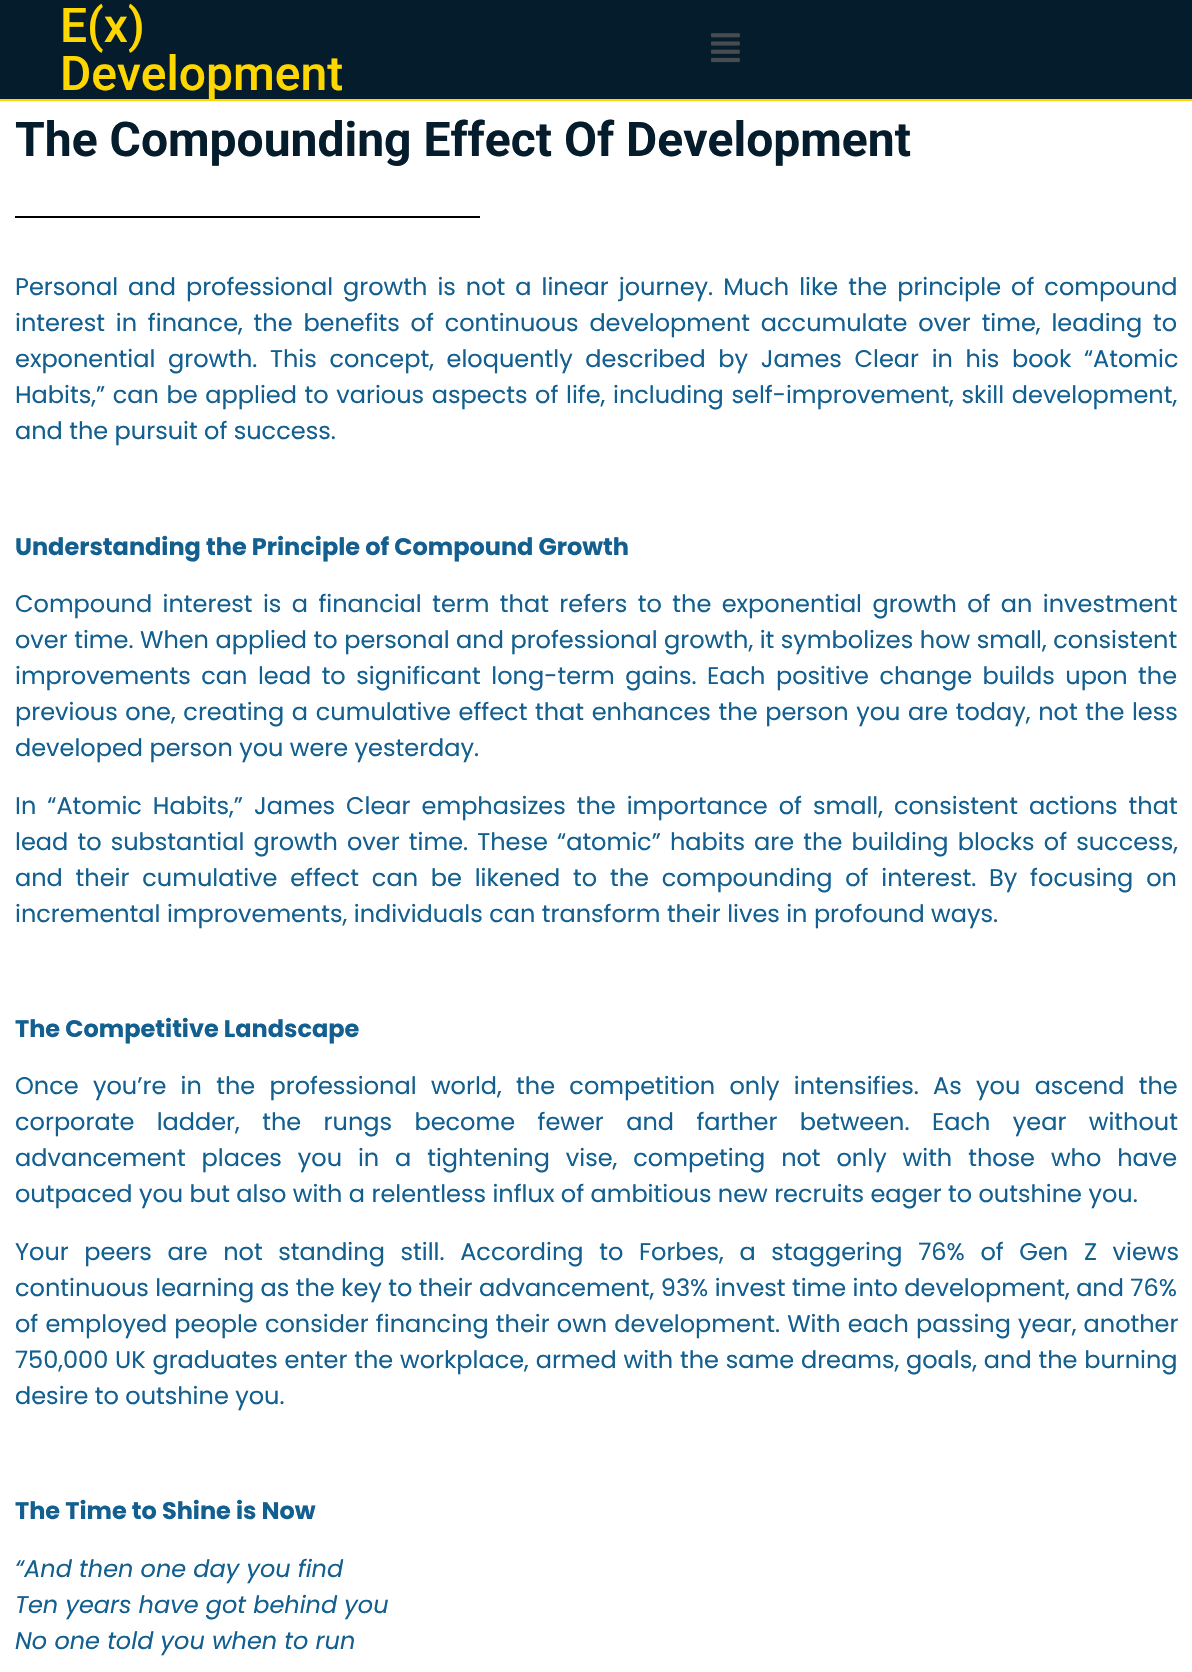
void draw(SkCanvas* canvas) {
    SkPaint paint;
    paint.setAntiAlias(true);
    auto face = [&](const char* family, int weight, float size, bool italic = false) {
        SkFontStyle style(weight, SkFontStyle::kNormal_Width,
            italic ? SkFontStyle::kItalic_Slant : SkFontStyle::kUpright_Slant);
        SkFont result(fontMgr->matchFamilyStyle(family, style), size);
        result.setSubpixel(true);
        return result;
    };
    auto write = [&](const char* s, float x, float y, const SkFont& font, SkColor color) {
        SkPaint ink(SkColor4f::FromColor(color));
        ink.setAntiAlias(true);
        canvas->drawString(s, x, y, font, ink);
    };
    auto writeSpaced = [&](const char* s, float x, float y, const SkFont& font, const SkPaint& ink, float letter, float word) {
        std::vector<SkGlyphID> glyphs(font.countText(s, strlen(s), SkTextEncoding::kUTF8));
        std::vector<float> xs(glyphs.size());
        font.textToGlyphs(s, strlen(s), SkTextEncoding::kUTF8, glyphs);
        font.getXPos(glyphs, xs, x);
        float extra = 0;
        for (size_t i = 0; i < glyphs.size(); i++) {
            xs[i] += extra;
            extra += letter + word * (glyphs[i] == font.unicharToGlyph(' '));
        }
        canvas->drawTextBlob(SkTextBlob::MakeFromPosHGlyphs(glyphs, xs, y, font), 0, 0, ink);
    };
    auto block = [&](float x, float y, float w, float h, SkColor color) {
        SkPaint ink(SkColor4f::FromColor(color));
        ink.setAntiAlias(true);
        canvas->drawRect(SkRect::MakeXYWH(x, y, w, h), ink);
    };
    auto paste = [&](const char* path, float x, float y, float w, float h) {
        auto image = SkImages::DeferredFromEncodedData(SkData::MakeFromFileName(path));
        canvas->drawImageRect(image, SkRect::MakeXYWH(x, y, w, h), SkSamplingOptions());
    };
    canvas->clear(SK_ColorWHITE);
    block(0, 0, 1192, 99, SkColorSetRGB(4, 28, 44));
    block(0, 99, 1192, 2, SkColorSetRGB(255, 215, 0));
    auto kFont1 = face("Roboto", 500, 48);
    write("E(x)", 60, 42, kFont1, SkColorSetRGB(255, 215, 0));
    write("Development", 60, 90, kFont1, SkColorSetRGB(255, 215, 0));
    paste("pic1.png", 711, 33, 29, 30);
    auto kFont2 = face("Roboto", 700, 48);
    write("The Compounding Effect Of Development", 15, 156, kFont2, SkColorSetRGB(4, 28, 44));
    block(15, 216, 465, 2, SK_ColorBLACK);
    auto kFont3 = face("Poppins", 400, 24);
    paint.setColor(SkColorSetRGB(18, 95, 144));
    writeSpaced("Personal and professional growth is not a linear journey. Much like the principle of compound", 15, 295, kFont3, paint, 0, 3.6f);
    writeSpaced("interest in finance, the benefits of continuous development accumulate over time, leading to", 15, 331, kFont3, paint, 0, 4.4f);
    writeSpaced("exponential growth. This concept, eloquently described by James Clear in his book “Atomic", 15, 367, kFont3, paint, 0, 6.25f);
    writeSpaced("Habits,” can be applied to various aspects of life, including self-improvement, skill development,", 15, 403, kFont3, paint, 0, 1.25f);
    write("and the pursuit of success.", 15, 439, kFont3, SkColorSetRGB(18, 95, 144));
    auto kFont4 = face("Poppins", 700, 24);
    write("Understanding the Principle of Compound Growth", 15, 555, kFont4, SkColorSetRGB(18, 95, 144));
    writeSpaced("Compound interest is a financial term that refers to the exponential growth of an investment", 15, 612, kFont3, paint, 0, 4);
    writeSpaced("over time. When applied to personal and professional growth, it symbolizes how small, consistent", 15, 648, kFont3, paint, 0, 0.1f);
    writeSpaced("improvements can lead to significant long-term gains. Each positive change builds upon the", 15, 684, kFont3, paint, 0, 4.1f);
    writeSpaced("previous one, creating a cumulative effect that enhances the person you are today, not the less", 15, 720, kFont3, paint, 0, 1.25f);
    write("developed person you were yesterday.", 15, 756, kFont3, SkColorSetRGB(18, 95, 144));
    writeSpaced("In “Atomic Habits,” James Clear emphasizes the importance of small, consistent actions that", 15, 814, kFont3, paint, 0, 4.6f);
    writeSpaced("lead to substantial growth over time. These “atomic” habits are the building blocks of success,", 15, 850, kFont3, paint, 0, 2.75f);
    writeSpaced("and their cumulative effect can be likened to the compounding of interest. By focusing on", 15, 886, kFont3, paint, 0, 6.4f);
    write("incremental improvements, individuals can transform their lives in profound ways.", 15, 922, kFont3, SkColorSetRGB(18, 95, 144));
    write("The Competitive Landscape", 15, 1037, kFont4, SkColorSetRGB(18, 95, 144));
    writeSpaced("Once you’re in the professional world, the competition only intensifies. As you ascend the", 15, 1094, kFont3, paint, 0, 7.9f);
    writeSpaced("corporate ladder, the rungs become fewer and farther between. Each year without", 15, 1130, kFont3, paint, 0, 16);
    writeSpaced("advancement places you in a tightening vise, competing not only with those who have", 15, 1166, kFont3, paint, 0, 9.5f);
    write("outpaced you but also with a relentless influx of ambitious new recruits eager to outshine you.", 15, 1202, kFont3, SkColorSetRGB(18, 95, 144));
    writeSpaced("Your peers are not standing still. According to Forbes, a staggering 76% of Gen Z views", 15, 1260, kFont3, paint, 0, 9.25f);
    write("continuous learning as the key to their advancement, 93% invest time into development, and 76%", 15, 1296, kFont3, SkColorSetRGB(18, 95, 144));
    writeSpaced("of employed people consider financing their own development. With each passing year, another", 15, 1332, kFont3, paint, 0, 0.75f);
    writeSpaced("750,000 UK graduates enter the workplace, armed with the same dreams, goals, and the burning", 15, 1368, kFont3, paint, 0, 0.4f);
    write("desire to outshine you.", 15, 1404, kFont3, SkColorSetRGB(18, 95, 144));
    write("The Time to Shine is Now", 15, 1519, kFont4, SkColorSetRGB(18, 95, 144));
    auto kFont5 = face("Poppins", 400, 24, true);
    write("“And then one day you find", 15, 1577, kFont5, SkColorSetRGB(18, 95, 144));
    write("Ten years have got behind you", 15, 1613, kFont5, SkColorSetRGB(18, 95, 144));
    write("No one told you when to run", 15, 1649, kFont5, SkColorSetRGB(18, 95, 144));
}
